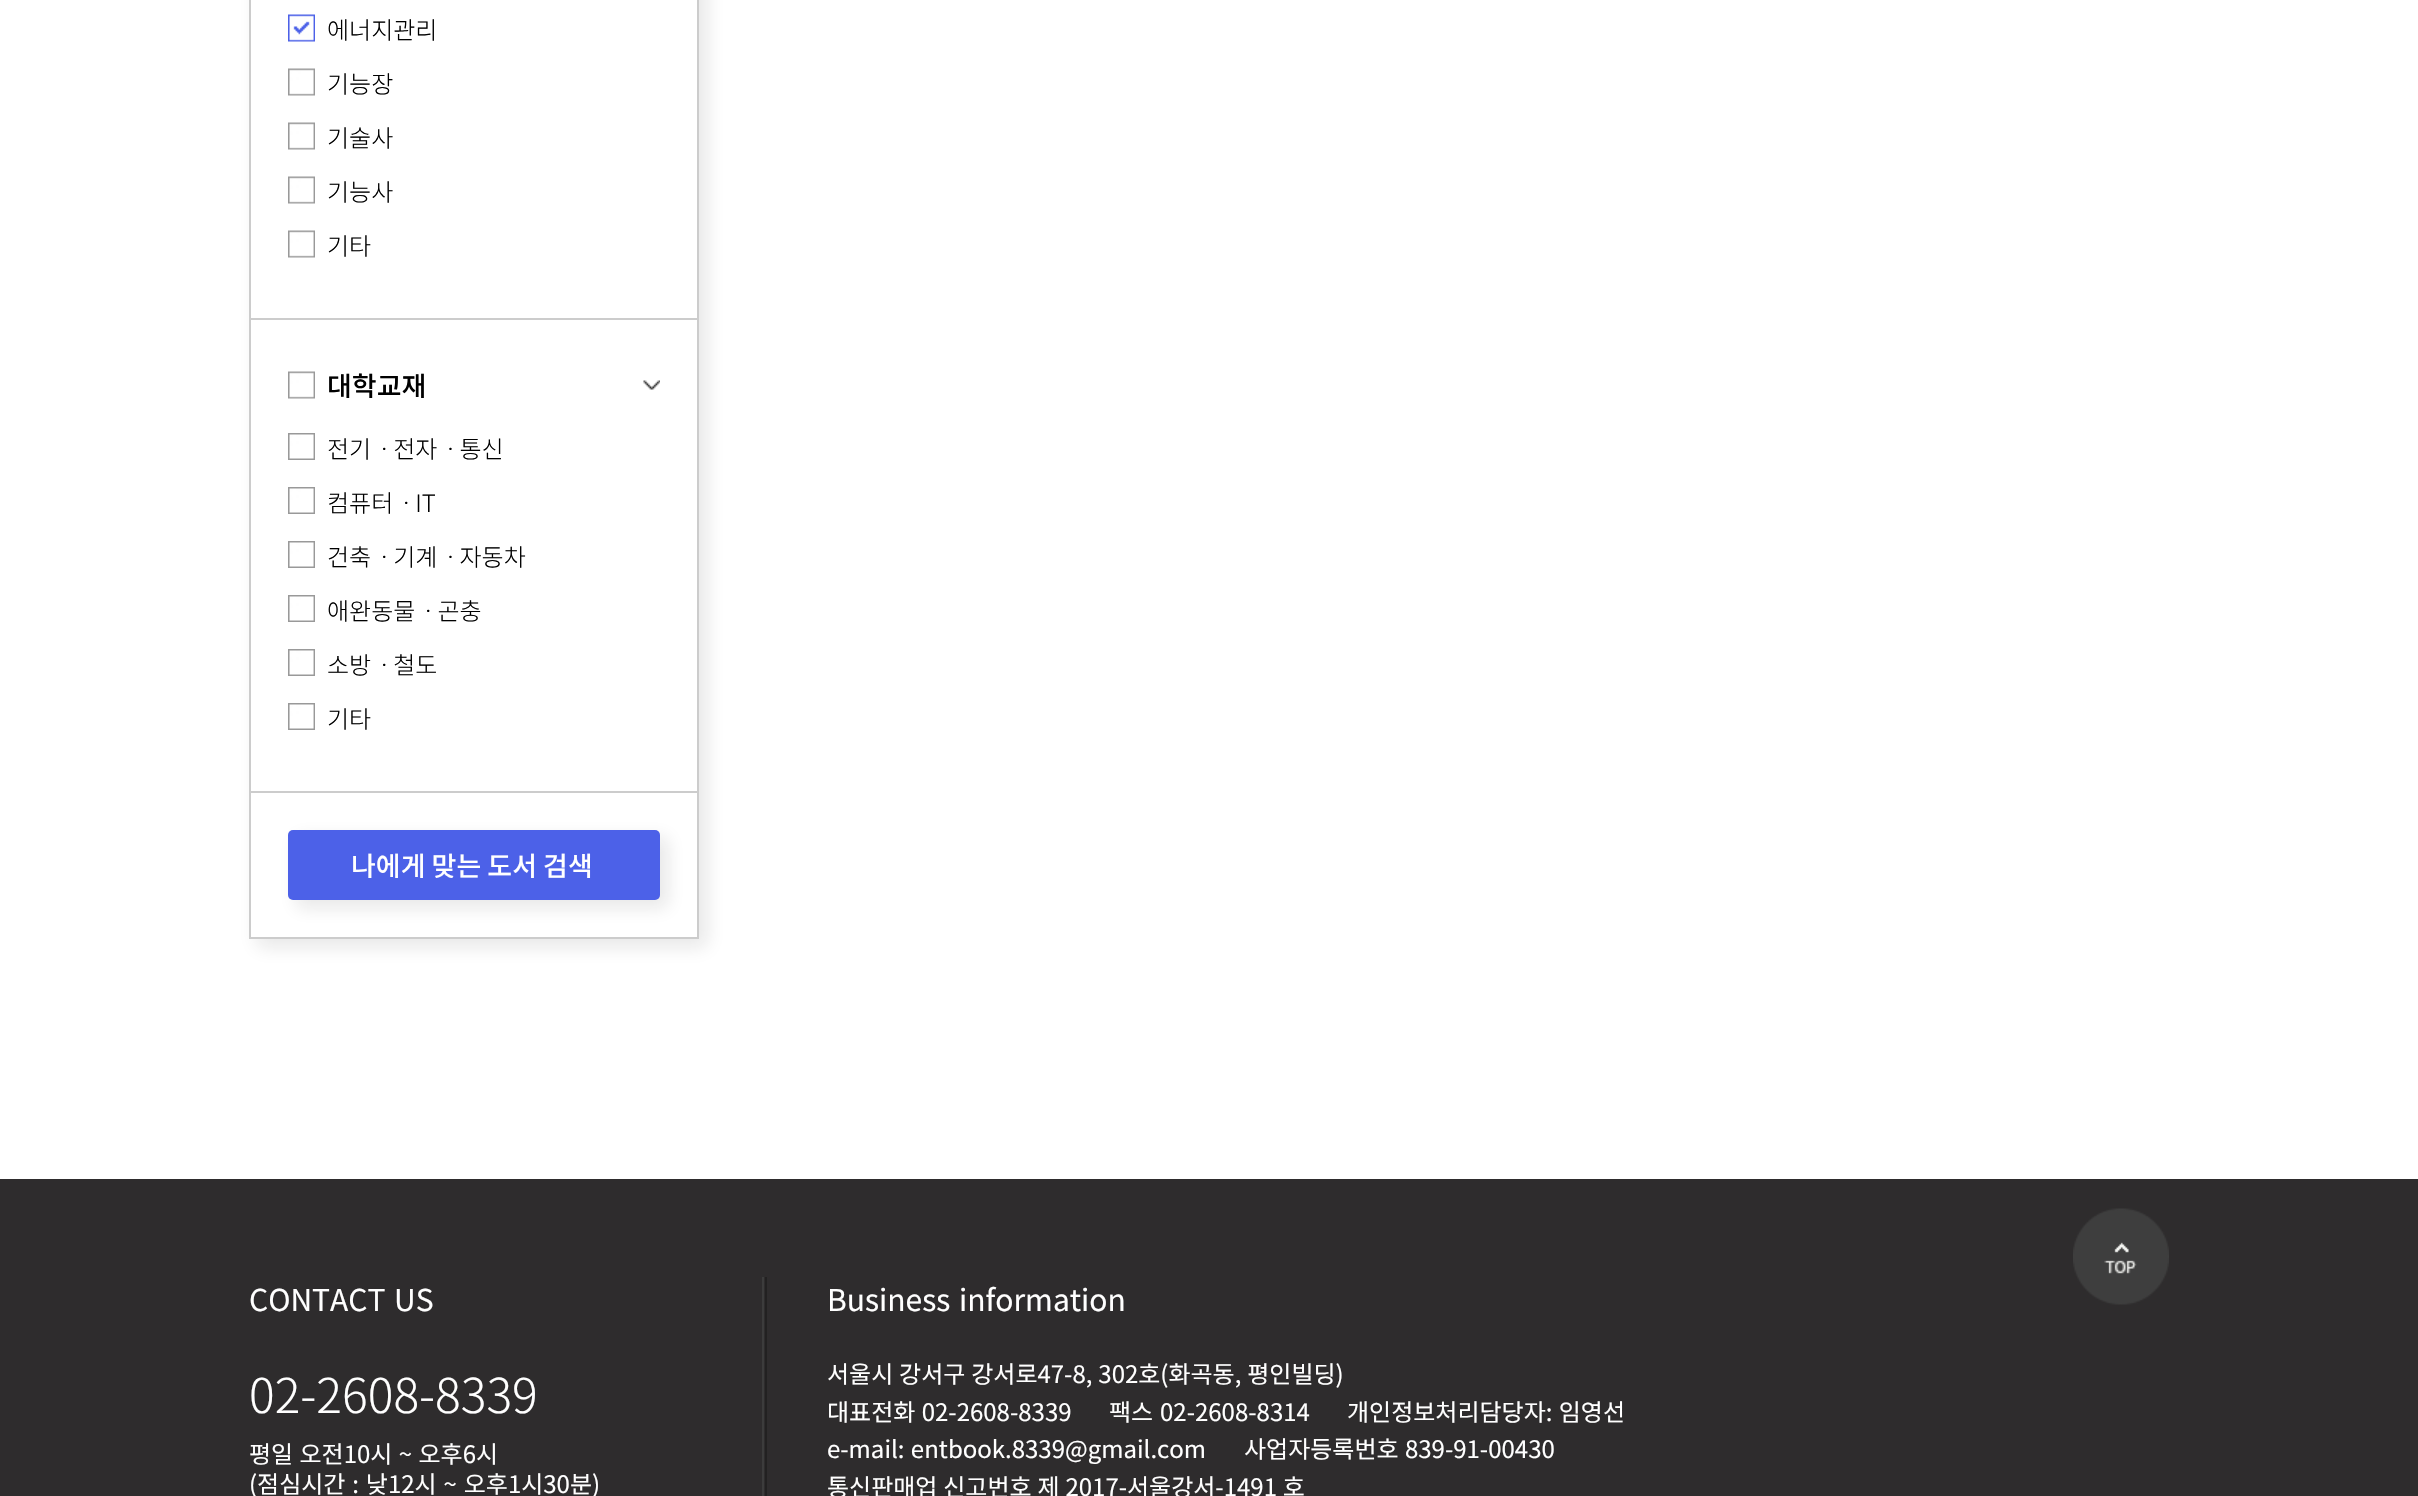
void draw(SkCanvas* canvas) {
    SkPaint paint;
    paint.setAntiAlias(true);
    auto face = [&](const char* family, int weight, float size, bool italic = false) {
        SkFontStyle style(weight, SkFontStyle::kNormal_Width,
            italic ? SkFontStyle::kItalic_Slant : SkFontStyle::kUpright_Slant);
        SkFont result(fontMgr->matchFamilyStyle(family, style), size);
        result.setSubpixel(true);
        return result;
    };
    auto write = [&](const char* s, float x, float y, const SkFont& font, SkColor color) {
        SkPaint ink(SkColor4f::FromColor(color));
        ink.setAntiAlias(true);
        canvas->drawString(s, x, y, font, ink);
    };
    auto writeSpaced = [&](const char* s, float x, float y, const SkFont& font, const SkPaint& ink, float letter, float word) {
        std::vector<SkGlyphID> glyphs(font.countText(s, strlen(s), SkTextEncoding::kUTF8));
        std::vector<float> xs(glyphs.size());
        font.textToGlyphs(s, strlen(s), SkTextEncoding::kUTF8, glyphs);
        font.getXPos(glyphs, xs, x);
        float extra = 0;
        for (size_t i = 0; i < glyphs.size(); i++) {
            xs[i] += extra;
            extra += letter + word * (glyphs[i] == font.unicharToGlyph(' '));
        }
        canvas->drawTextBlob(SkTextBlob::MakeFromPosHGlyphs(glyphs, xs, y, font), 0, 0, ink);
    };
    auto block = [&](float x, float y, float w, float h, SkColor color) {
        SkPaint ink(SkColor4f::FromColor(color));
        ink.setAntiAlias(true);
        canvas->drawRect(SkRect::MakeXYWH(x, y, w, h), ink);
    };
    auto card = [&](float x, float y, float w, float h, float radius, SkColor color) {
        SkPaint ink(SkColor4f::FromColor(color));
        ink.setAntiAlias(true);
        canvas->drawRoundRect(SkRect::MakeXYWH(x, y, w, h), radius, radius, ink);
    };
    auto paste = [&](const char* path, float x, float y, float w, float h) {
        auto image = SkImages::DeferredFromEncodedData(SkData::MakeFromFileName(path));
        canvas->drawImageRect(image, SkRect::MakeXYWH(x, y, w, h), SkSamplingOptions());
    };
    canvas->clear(SK_ColorWHITE);
    canvas->save();
    canvas->clipPath(SkPathBuilder(SkPathFillType::kEvenOdd).moveTo(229, 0).lineTo(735, 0).lineTo(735, 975).lineTo(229, 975).close().moveTo(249, -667).lineTo(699, -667).lineTo(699, 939).lineTo(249, 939).close().detach(), true);
    paint.setColor(SkColorSetARGB(26, 23, 23, 23));
    paint.setMaskFilter(SkMaskFilter::MakeBlur(kNormal_SkBlurStyle, 9));
    canvas->drawRect(SkRect::MakeXYWH(257, -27, 450, 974), paint);
    paint.setMaskFilter(nullptr);
    canvas->restore();
    paint.setStyle(SkPaint::kStroke_Style);
    paint.setStrokeWidth(2);
    paint.setColor(SkColorSetRGB(204, 204, 204));
    canvas->drawRect(SkRect::MakeXYWH(250, -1, 448, 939), paint);
    block(251, 318, 447, 2, SkColorSetRGB(204, 204, 204));
    paste("pic1.png", 288, 14, 27, 28);
    auto kFont1 = face("Noto Sans KR", 300, 24);
    write("에너지관리", 327, 39, kFont1, SK_ColorBLACK);
    paste("pic2.png", 288, 68, 27, 28);
    write("기능장", 327, 93, kFont1, SK_ColorBLACK);
    paste("pic2.png", 288, 122, 27, 28);
    write("기술사", 327, 147, kFont1, SK_ColorBLACK);
    paste("pic2.png", 288, 176, 27, 28);
    write("기능사", 327, 201, kFont1, SK_ColorBLACK);
    paste("pic2.png", 288, 230, 27, 28);
    write("기타", 327, 255, kFont1, SK_ColorBLACK);
    block(251, 791, 447, 2, SkColorSetRGB(204, 204, 204));
    paste("pic3.png", 643, 380, 17, 10);
    paste("pic2.png", 288, 371, 27, 28);
    auto kFont2 = face("Noto Sans KR", 500, 27);
    write("대학교재", 327, 396, kFont2, SK_ColorBLACK);
    paste("pic4.png", 288, 433, 27, 27);
    write("전기ㆍ전자ㆍ통신", 327, 458, kFont1, SK_ColorBLACK);
    paste("pic4.png", 288, 487, 27, 27);
    write("컴퓨터ㆍIT", 327, 512, kFont1, SK_ColorBLACK);
    paste("pic4.png", 288, 541, 27, 27);
    write("건축ㆍ기계ㆍ자동차", 327, 566, kFont1, SK_ColorBLACK);
    paste("pic4.png", 288, 595, 27, 27);
    write("애완동물ㆍ곤충", 327, 620, kFont1, SK_ColorBLACK);
    paste("pic4.png", 288, 649, 27, 27);
    write("소방ㆍ철도", 327, 674, kFont1, SK_ColorBLACK);
    paste("pic4.png", 288, 703, 27, 27);
    write("기타", 327, 728, kFont1, SK_ColorBLACK);
    paint.setStyle(SkPaint::kFill_Style);
    paint.setColor(SkColorSetARGB(26, 23, 23, 23));
    paint.setMaskFilter(SkMaskFilter::MakeBlur(kNormal_SkBlurStyle, 9));
    canvas->drawRoundRect(SkRect::MakeXYWH(296, 837, 372, 71), 5, 5, paint);
    paint.setMaskFilter(nullptr);
    card(288, 830, 372, 70, 5, SkColorSetRGB(76, 97, 232));
    write("나에게 맞는 도서 검색", 351, 876, kFont2, SK_ColorWHITE);
    block(0, 1179, 2418, 317, SkColorSetRGB(46, 44, 45));
    paste("pic5.png", 2073, 1208, 96, 97);
    block(765, 1277, 2, 219, SkColorSetRGB(34, 33, 33));
    auto kFont3 = face("Noto Sans KR", 400, 30);
    paint.setColor(SK_ColorWHITE);
    writeSpaced("CONTACT US", 249, 1311, kFont3, paint, 0, 2);
    block(762, 1277, 2, 219, SkColorSetRGB(60, 60, 60));
    auto kFont4 = face("Noto Sans KR", 300, 48);
    write("02-2608-8339", 249, 1413, kFont4, SK_ColorWHITE);
    auto kFont5 = face("Noto Sans KR", 400, 24);
    writeSpaced("평일 오전10시 ~ 오후6시", 249, 1463, kFont5, paint, 0, 1);
    writeSpaced("(점심시간 : 낮12시 ~ 오후1시30분)", 249, 1493, kFont5, paint, 0, 1.5f);
    writeSpaced("Business information", 827, 1311, kFont3, paint, 0, 2);
    writeSpaced("서울시 강서구 강서로47-8, 302호(화곡동, 평인빌딩)", 827, 1383, kFont5, paint, 0, 0.5f);
    writeSpaced("대표전화 02-2608-8339", 827, 1421, kFont5, paint, 0, 1);
    write("팩스", 1109, 1421, kFont5, SK_ColorWHITE);
    write("02-2608-8314", 1160, 1421, kFont5, SK_ColorWHITE);
    writeSpaced("개인정보처리담당자: 임영선", 1347, 1421, kFont5, paint, 0, 1);
    writeSpaced("e-mail: entbook.8339@gmail.com", 827, 1458, kFont5, paint, 0, 1);
    writeSpaced("사업자등록번호 839-91-00430", 1244, 1458, kFont5, paint, 0, 1);
    writeSpaced("통신판매업 신고번호 제 2017-서울강서-1491 호", 827, 1496, kFont5, paint, 0, 0.5f);
}
